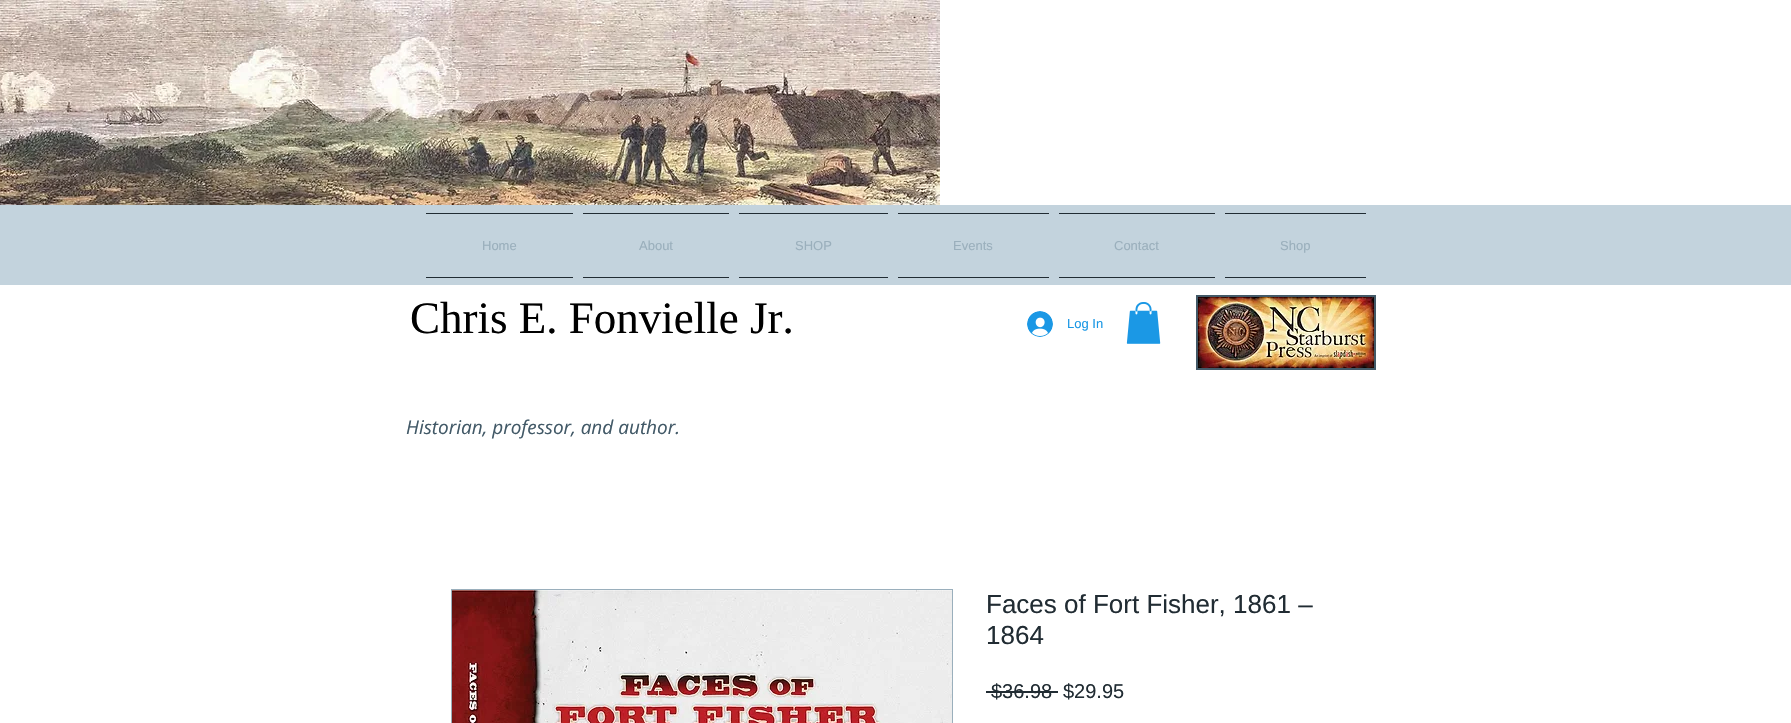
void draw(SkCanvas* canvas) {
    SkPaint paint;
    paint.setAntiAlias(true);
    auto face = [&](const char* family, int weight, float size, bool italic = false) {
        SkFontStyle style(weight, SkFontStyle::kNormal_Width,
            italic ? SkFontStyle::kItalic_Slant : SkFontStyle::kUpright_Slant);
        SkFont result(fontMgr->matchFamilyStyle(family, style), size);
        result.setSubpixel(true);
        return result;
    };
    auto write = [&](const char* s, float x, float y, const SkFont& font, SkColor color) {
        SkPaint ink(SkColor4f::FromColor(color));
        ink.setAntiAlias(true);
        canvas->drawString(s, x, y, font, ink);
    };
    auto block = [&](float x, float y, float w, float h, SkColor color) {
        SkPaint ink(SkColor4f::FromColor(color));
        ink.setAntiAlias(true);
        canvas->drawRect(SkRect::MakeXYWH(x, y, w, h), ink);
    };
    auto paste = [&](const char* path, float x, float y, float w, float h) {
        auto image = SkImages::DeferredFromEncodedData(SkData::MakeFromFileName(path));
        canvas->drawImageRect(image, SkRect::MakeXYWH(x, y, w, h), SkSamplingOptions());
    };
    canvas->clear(SK_ColorWHITE);
    paste("pic1.png", 0, 0, 940, 205);
    block(0, 205, 1791, 80, SkColorSetRGB(195, 211, 221));
    block(426, 213, 147, 1, SkColorSetRGB(33, 44, 51));
    block(426, 277, 147, 1, SkColorSetRGB(33, 44, 51));
    auto kFont1 = face("Liberation Sans", 400, 13);
    write("Home", 482, 250, kFont1, SkColorSetRGB(154, 175, 188));
    block(583, 213, 146, 1, SkColorSetRGB(33, 44, 51));
    block(583, 277, 146, 1, SkColorSetRGB(33, 44, 51));
    write("About", 639, 250, kFont1, SkColorSetRGB(154, 175, 188));
    block(739, 213, 149, 1, SkColorSetRGB(33, 44, 51));
    block(739, 277, 149, 1, SkColorSetRGB(33, 44, 51));
    write("SHOP", 795, 250, kFont1, SkColorSetRGB(154, 175, 188));
    block(898, 213, 151, 1, SkColorSetRGB(33, 44, 51));
    block(898, 277, 151, 1, SkColorSetRGB(33, 44, 51));
    write("Events", 953, 250, kFont1, SkColorSetRGB(154, 175, 188));
    block(1059, 213, 156, 1, SkColorSetRGB(33, 44, 51));
    block(1059, 277, 156, 1, SkColorSetRGB(33, 44, 51));
    write("Contact", 1114, 250, kFont1, SkColorSetRGB(154, 175, 188));
    block(1225, 213, 141, 1, SkColorSetRGB(33, 44, 51));
    block(1225, 277, 141, 1, SkColorSetRGB(33, 44, 51));
    write("Shop", 1280, 250, kFont1, SkColorSetRGB(154, 175, 188));
    auto kFont2 = face("Liberation Serif", 400, 45);
    write("Chris E. Fonvielle Jr.", 410, 333, kFont2, SK_ColorBLACK);
    paste("pic2.png", 1027, 311, 26, 26);
    write("Log In", 1067, 328, kFont1, SkColorSetRGB(27, 152, 229));
    paste("pic3.png", 1126, 302, 35, 42);
    block(1196, 295, 180, 75, SkColorSetRGB(66, 89, 103));
    paste("pic4.png", 1198, 297, 176, 71);
    auto kFont3 = face("Open Sans", 400, 19, true);
    write("Historian, professor, and author.", 406, 434, kFont3, SkColorSetRGB(66, 89, 103));
    paint.setStyle(SkPaint::kStroke_Style);
    paint.setStrokeWidth(1);
    paint.setColor(SkColorSetRGB(154, 175, 188));
    canvas->drawRect(SkRect::MakeXYWH(451.5f, 589.5f, 501, 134), paint);
    paste("pic5.png", 452, 590, 500, 133);
    auto kFont4 = face("Liberation Sans", 400, 26);
    write("Faces of Fort Fisher, 1861 –", 986, 613, kFont4, SkColorSetRGB(33, 44, 51));
    write("1864", 986, 644, kFont4, SkColorSetRGB(33, 44, 51));
    auto kFont5 = face("Liberation Sans", 400, 20);
    write("$36.98", 991, 698, kFont5, SkColorSetRGB(33, 44, 51));
    block(986, 691, 72, 2, SkColorSetRGB(33, 44, 51));
    write("$29.95", 1063, 698, kFont5, SkColorSetRGB(33, 44, 51));
}
